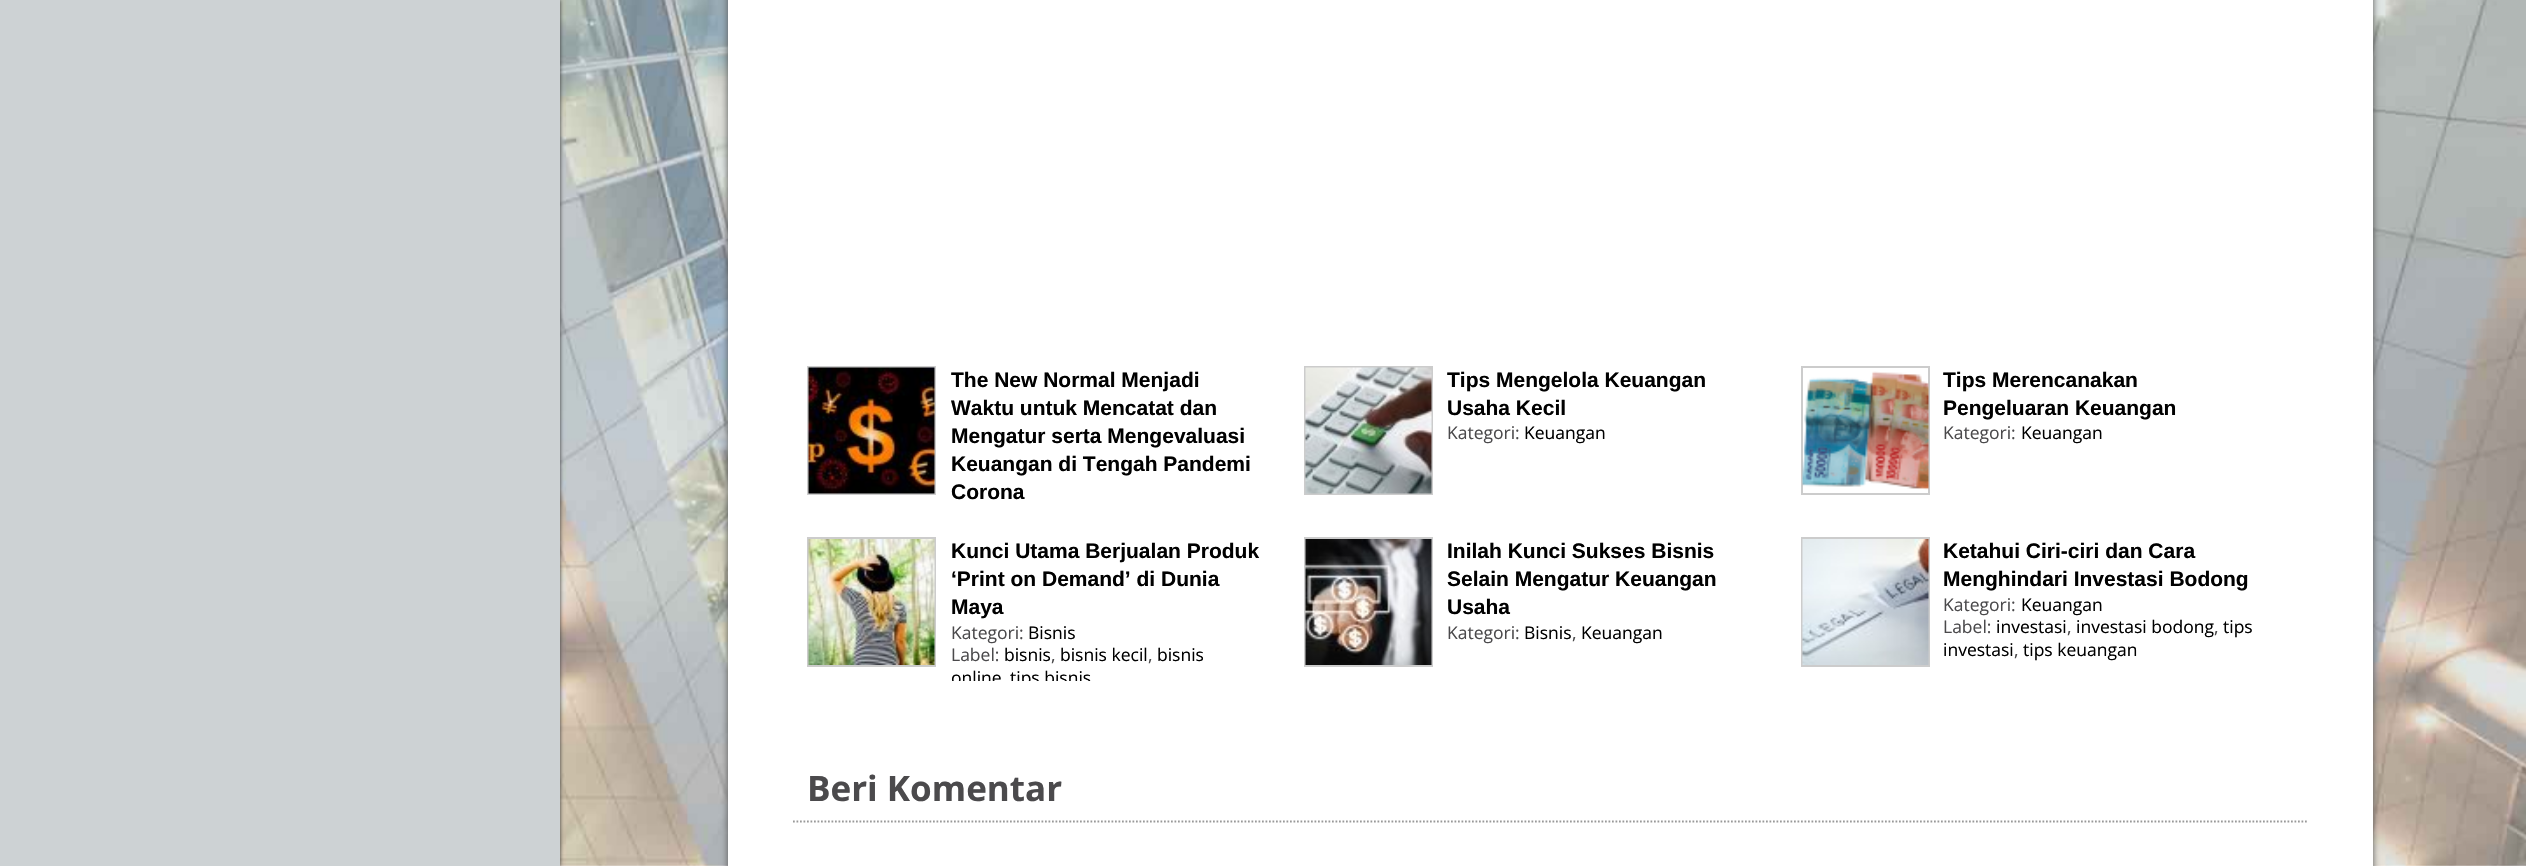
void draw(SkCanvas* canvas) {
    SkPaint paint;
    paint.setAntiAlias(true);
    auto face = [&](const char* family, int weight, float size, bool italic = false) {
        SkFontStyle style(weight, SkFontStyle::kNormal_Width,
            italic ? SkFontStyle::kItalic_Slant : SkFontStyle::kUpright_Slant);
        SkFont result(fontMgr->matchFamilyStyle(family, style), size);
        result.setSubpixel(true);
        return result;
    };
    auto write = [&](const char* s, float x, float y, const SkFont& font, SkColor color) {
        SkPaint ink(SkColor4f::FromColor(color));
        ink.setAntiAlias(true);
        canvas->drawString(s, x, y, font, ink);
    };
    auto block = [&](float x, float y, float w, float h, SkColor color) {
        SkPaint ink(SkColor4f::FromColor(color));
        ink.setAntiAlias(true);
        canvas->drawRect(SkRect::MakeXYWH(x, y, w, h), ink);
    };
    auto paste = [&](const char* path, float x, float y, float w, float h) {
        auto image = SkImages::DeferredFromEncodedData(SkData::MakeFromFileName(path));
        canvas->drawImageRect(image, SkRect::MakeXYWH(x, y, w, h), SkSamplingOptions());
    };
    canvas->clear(SK_ColorWHITE);
    paste("pic1.png", 560, 0, 1966, 866);
    paint.setColor(SkColorSetRGB(51, 51, 51));
    paint.setMaskFilter(SkMaskFilter::MakeBlur(kNormal_SkBlurStyle, 2));
    canvas->drawRect(SkRect::MakeXYWH(0, 0, 560, 866), paint);
    paint.setMaskFilter(nullptr);
    block(0, 0, 560, 866, SkColorSetRGB(205, 210, 212));
    paint.setColor(SkColorSetRGB(85, 85, 85));
    paint.setMaskFilter(SkMaskFilter::MakeBlur(kNormal_SkBlurStyle, 3.5f));
    canvas->drawRect(SkRect::MakeXYWH(728, -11, 1645, 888), paint);
    paint.setMaskFilter(nullptr);
    block(728, 0, 1645, 866, SK_ColorWHITE);
    paint.setStyle(SkPaint::kStroke_Style);
    paint.setStrokeWidth(2);
    paint.setColor(SkColorSetRGB(204, 204, 204));
    canvas->drawRect(SkRect::MakeXYWH(808, 367, 127, 127), paint);
    paste("pic2.png", 808, 367, 127, 127);
    auto kFont1 = face("Liberation Sans", 700, 21);
    write("The New Normal Menjadi", 951, 387, kFont1, SK_ColorBLACK);
    write("Waktu untuk Mencatat dan", 951, 415, kFont1, SK_ColorBLACK);
    write("Mengatur serta Mengevaluasi", 951, 443, kFont1, SK_ColorBLACK);
    write("Keuangan di Tengah Pandemi", 951, 471, kFont1, SK_ColorBLACK);
    write("Corona", 951, 499, kFont1, SK_ColorBLACK);
    canvas->drawRect(SkRect::MakeXYWH(1305, 367, 127, 127), paint);
    paste("pic3.png", 1305, 367, 127, 127);
    write("Tips Mengelola Keuangan", 1447, 387, kFont1, SK_ColorBLACK);
    write("Usaha Kecil", 1447, 415, kFont1, SK_ColorBLACK);
    auto kFont2 = face("Open Sans", 400, 17.5f);
    write("Kategori:", 1447, 439, kFont2, SkColorSetRGB(75, 74, 76));
    write("Keuangan", 1524, 439, kFont2, SK_ColorBLACK);
    canvas->drawRect(SkRect::MakeXYWH(1802, 367, 127, 127), paint);
    paste("pic4.png", 1802, 371, 127, 119);
    write("Tips Merencanakan", 1943, 387, kFont1, SK_ColorBLACK);
    write("Pengeluaran Keuangan", 1943, 415, kFont1, SK_ColorBLACK);
    write("Kategori:", 1943, 439, kFont2, SkColorSetRGB(75, 74, 76));
    write("Keuangan", 2021, 439, kFont2, SK_ColorBLACK);
    canvas->drawRect(SkRect::MakeXYWH(808, 538, 127, 128), paint);
    paste("pic5.png", 808, 539, 127, 126);
    write("Kunci Utama Berjualan Produk", 951, 558, kFont1, SK_ColorBLACK);
    write("‘Print on Demand’ di Dunia", 951, 586, kFont1, SK_ColorBLACK);
    write("Maya", 951, 614, kFont1, SK_ColorBLACK);
    write("Kategori:", 951, 639, kFont2, SkColorSetRGB(75, 74, 76));
    write("Bisnis", 1028, 639, kFont2, SK_ColorBLACK);
    write("Label:", 951, 661, kFont2, SkColorSetRGB(75, 74, 76));
    write("bisnis", 1004, 661, kFont2, SK_ColorBLACK);
    write(",", 1051, 661, kFont2, SkColorSetRGB(75, 74, 76));
    write("bisnis kecil", 1060, 661, kFont2, SK_ColorBLACK);
    write(",", 1148, 661, kFont2, SkColorSetRGB(75, 74, 76));
    write("bisnis", 1157, 661, kFont2, SK_ColorBLACK);
    canvas->save();
    canvas->clipRect(SkRect::MakeXYWH(793, 523, 483, 158));
    write("online", 951, 684, kFont2, SK_ColorBLACK);
    write("tips bisnis", 1010, 684, kFont2, SK_ColorBLACK);
    canvas->restore();
    canvas->drawRect(SkRect::MakeXYWH(1305, 538, 127, 128), paint);
    paste("pic6.png", 1305, 539, 127, 126);
    write("Inilah Kunci Sukses Bisnis", 1447, 558, kFont1, SK_ColorBLACK);
    write("Selain Mengatur Keuangan", 1447, 586, kFont1, SK_ColorBLACK);
    write("Usaha", 1447, 614, kFont1, SK_ColorBLACK);
    write("Kategori:", 1447, 639, kFont2, SkColorSetRGB(75, 74, 76));
    write("Bisnis", 1524, 639, kFont2, SK_ColorBLACK);
    write(",", 1572, 639, kFont2, SkColorSetRGB(75, 74, 76));
    write("Keuangan", 1581, 639, kFont2, SK_ColorBLACK);
    canvas->drawRect(SkRect::MakeXYWH(1802, 538, 127, 128), paint);
    paste("pic7.png", 1802, 539, 127, 126);
    write("Ketahui Ciri-ciri dan Cara", 1943, 558, kFont1, SK_ColorBLACK);
    write("Menghindari Investasi Bodong", 1943, 586, kFont1, SK_ColorBLACK);
    write("Kategori:", 1943, 611, kFont2, SkColorSetRGB(75, 74, 76));
    write("Keuangan", 2021, 611, kFont2, SK_ColorBLACK);
    write("Label:", 1943, 633, kFont2, SkColorSetRGB(75, 74, 76));
    write("investasi", 1996, 633, kFont2, SK_ColorBLACK);
    write(",", 2067, 633, kFont2, SkColorSetRGB(75, 74, 76));
    write("investasi bodong", 2076, 633, kFont2, SK_ColorBLACK);
    write(",", 2214, 633, kFont2, SkColorSetRGB(75, 74, 76));
    write("tips", 2223, 633, kFont2, SK_ColorBLACK);
    write("investasi", 1943, 656, kFont2, SK_ColorBLACK);
    write(",", 2014, 656, kFont2, SkColorSetRGB(75, 74, 76));
    write("tips keuangan", 2023, 656, kFont2, SK_ColorBLACK);
    paint.setStrokeWidth(1.8f);
    paint.setColor(SkColorSetRGB(153, 153, 153));
    paint.setPathEffect(SkDashPathEffect::Make({{1.75f, 1.75f}}, 0));
    canvas->drawPath(SkPathBuilder().moveTo(793, 821.5f).lineTo(2308, 821.5f).detach(), paint);
    paint.setPathEffect(nullptr);
    auto kFont3 = face("Open Sans", 700, 35);
    write("Beri Komentar", 807, 801, kFont3, SkColorSetRGB(75, 74, 76));
}
